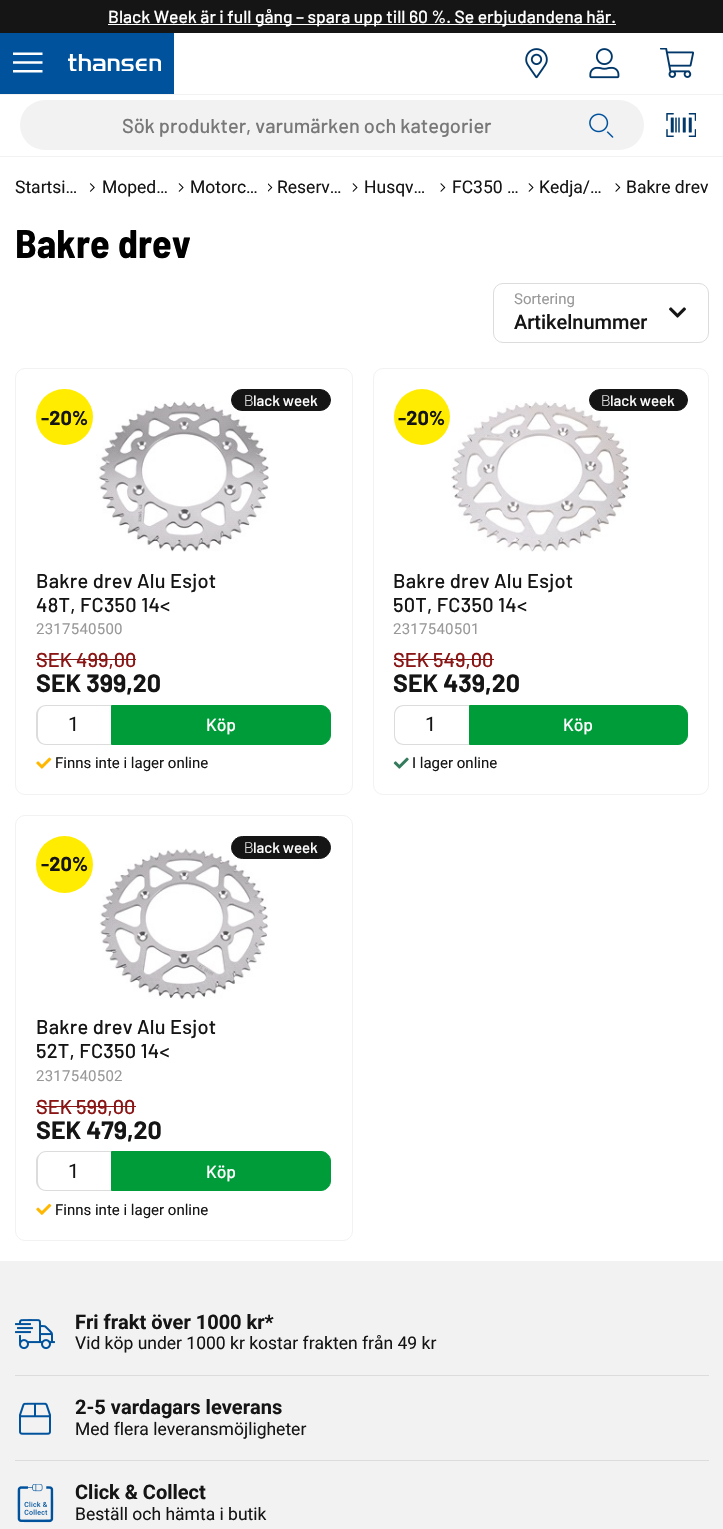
void draw(SkCanvas* canvas) {
    SkPaint paint;
    paint.setAntiAlias(true);
    auto face = [&](const char* family, int weight, float size, bool italic = false) {
        SkFontStyle style(weight, SkFontStyle::kNormal_Width,
            italic ? SkFontStyle::kItalic_Slant : SkFontStyle::kUpright_Slant);
        SkFont result(fontMgr->matchFamilyStyle(family, style), size);
        result.setSubpixel(true);
        return result;
    };
    auto write = [&](const char* s, float x, float y, const SkFont& font, SkColor color) {
        SkPaint ink(SkColor4f::FromColor(color));
        ink.setAntiAlias(true);
        canvas->drawString(s, x, y, font, ink);
    };
    auto writeSpaced = [&](const char* s, float x, float y, const SkFont& font, const SkPaint& ink, float letter, float word) {
        std::vector<SkGlyphID> glyphs(font.countText(s, strlen(s), SkTextEncoding::kUTF8));
        std::vector<float> xs(glyphs.size());
        font.textToGlyphs(s, strlen(s), SkTextEncoding::kUTF8, glyphs);
        font.getXPos(glyphs, xs, x);
        float extra = 0;
        for (size_t i = 0; i < glyphs.size(); i++) {
            xs[i] += extra;
            extra += letter + word * (glyphs[i] == font.unicharToGlyph(' '));
        }
        canvas->drawTextBlob(SkTextBlob::MakeFromPosHGlyphs(glyphs, xs, y, font), 0, 0, ink);
    };
    auto block = [&](float x, float y, float w, float h, SkColor color) {
        SkPaint ink(SkColor4f::FromColor(color));
        ink.setAntiAlias(true);
        canvas->drawRect(SkRect::MakeXYWH(x, y, w, h), ink);
    };
    auto card = [&](float x, float y, float w, float h, float radius, SkColor color) {
        SkPaint ink(SkColor4f::FromColor(color));
        ink.setAntiAlias(true);
        canvas->drawRoundRect(SkRect::MakeXYWH(x, y, w, h), radius, radius, ink);
    };
    auto paste = [&](const char* path, float x, float y, float w, float h) {
        auto image = SkImages::DeferredFromEncodedData(SkData::MakeFromFileName(path));
        canvas->drawImageRect(image, SkRect::MakeXYWH(x, y, w, h), SkSamplingOptions());
    };
    canvas->clear(SK_ColorWHITE);
    block(0, 0, 723, 33, SkColorSetRGB(21, 21, 21));
    block(108, 24, 508, 1, SK_ColorWHITE);
    auto kFont1 = face("Barlow", 500, 17.5f);
    write("Black Week är i full gång – spara upp till 60 %. Se erbjudandena här.", 108, 23, kFont1, SK_ColorWHITE);
    block(0, 94, 723, 1, SkColorSetRGB(242, 242, 242));
    block(0, 33, 174, 61, SkColorSetRGB(0, 82, 156));
    paste("pic1.png", 13, 52, 30, 21);
    paste("pic2.png", 68, 54, 93, 17);
    paste("pic3.png", 525, 48, 23, 31);
    paste("pic4.png", 589, 48, 31, 31);
    paste("pic5.png", 660, 48, 34, 30);
    block(0, 156, 723, 1, SkColorSetRGB(242, 242, 242));
    card(20, 100, 624, 50, 25, SkColorSetRGB(242, 242, 242));
    auto kFont2 = face("Barlow", 500, 20);
    write("Sök produkter, varumärken och kategorier", 122, 133, kFont2, SkColorSetRGB(120, 120, 120));
    paste("pic6.png", 589, 113, 25, 25);
    paste("pic7.png", 666, 113, 30, 24);
    auto kFont3 = face("Roboto", 400, 17.5f);
    write("Startsi…", 15, 193, kFont3, SkColorSetRGB(21, 21, 21));
    paste("pic8.png", 89, 183, 6, 9);
    write("Moped…", 102, 193, kFont3, SkColorSetRGB(21, 21, 21));
    paste("pic9.png", 178, 183, 6, 9);
    write("Motorc…", 190, 193, kFont3, SkColorSetRGB(21, 21, 21));
    paste("pic10.png", 268, 183, 5, 9);
    write("Reserv…", 277, 193, kFont3, SkColorSetRGB(21, 21, 21));
    paste("pic11.png", 352, 183, 6, 9);
    write("Husqv…", 364, 193, kFont3, SkColorSetRGB(21, 21, 21));
    paste("pic12.png", 440, 183, 6, 9);
    write("FC350 …", 452, 193, kFont3, SkColorSetRGB(21, 21, 21));
    paste("pic13.png", 528, 183, 6, 9);
    write("Kedja/…", 539, 193, kFont3, SkColorSetRGB(21, 21, 21));
    paste("pic14.png", 615, 183, 6, 9);
    write("Bakre drev", 626, 193, kFont3, SkColorSetRGB(21, 21, 21));
    auto kFont4 = face("Barlow Semi Condensed", 700, 40);
    write("Bakre drev", 15, 258, kFont4, SK_ColorBLACK);
    paint.setStyle(SkPaint::kStroke_Style);
    paint.setStrokeWidth(1);
    paint.setColor(SkColorSetRGB(220, 220, 220));
    canvas->drawRoundRect(SkRect::MakeXYWH(493.5f, 283.5f, 215, 59), 9.5f, 9.5f, paint);
    auto kFont5 = face("Roboto", 400, 15);
    write("Sortering", 514, 304, kFont5, SkColorSetRGB(153, 153, 153));
    auto kFont6 = face("Roboto", 500, 20);
    write("Artikelnummer", 514, 329, kFont6, SkColorSetRGB(21, 21, 21));
    paste("pic15.png", 669, 307, 17, 11);
    paint.setColor(SkColorSetRGB(242, 242, 242));
    canvas->drawRoundRect(SkRect::MakeXYWH(15.5f, 368.5f, 337, 426), 9.5f, 9.5f, paint);
    paste("pic16.png", 96, 401, 173, 151);
    paint.setStyle(SkPaint::kFill_Style);
    paint.setColor(SkColorSetRGB(21, 21, 21));
    canvas->drawRoundRect(SkRect::MakeXYWH(231.5f, 389.5f, 99, 21), 10.5f, 10.5f, paint);
    paint.setStyle(SkPaint::kStroke_Style);
    canvas->drawRoundRect(SkRect::MakeXYWH(231.5f, 389.5f, 99, 21), 10.5f, 10.5f, paint);
    auto kFont7 = face("Noto Sans", 200, 15);
    write("B", 244, 406, kFont7, SK_ColorWHITE);
    auto kFont8 = face("Barlow", 500, 15);
    write("lack week", 253, 406, kFont8, SK_ColorWHITE);
    card(36, 389, 57, 56, 28, SkColorSetRGB(255, 236, 0));
    auto kFont9 = face("Barlow", 700, 20);
    write("-20%", 41, 425, kFont9, SkColorSetRGB(21, 21, 21));
    paint.setStyle(SkPaint::kFill_Style);
    writeSpaced("Bakre drev Alu Esjot", 36, 588, kFont2, paint, 0.25f, 0);
    writeSpaced("48T, FC350 14<", 36, 612, kFont2, paint, 0.25f, 0);
    paint.setColor(SkColorSetRGB(153, 153, 153));
    writeSpaced("2317540500", 36, 634, kFont5, paint, 0.25f, 0);
    write("SEK 499,00", 36, 667, kFont2, SkColorSetRGB(138, 21, 21));
    block(36, 659, 100, 1, SkColorSetRGB(138, 21, 21));
    auto kFont10 = face("Barlow", 700, 25);
    write("SEK 399,20", 36, 692, kFont10, SkColorSetRGB(21, 21, 21));
    paint.setColor(SkColorSetRGB(220, 220, 220));
    canvas->drawPath(SkPathBuilder(SkPathFillType::kEvenOdd).moveTo(46, 705).lineTo(111, 705).lineTo(111, 745).lineTo(46, 745).cubicTo(41, 745, 36, 741, 36, 735).lineTo(36, 715).cubicTo(36, 709, 41, 705, 46, 705).close().moveTo(46, 706).lineTo(111, 706).lineTo(111, 744).lineTo(46, 744).cubicTo(41, 744, 38, 740, 38, 735).lineTo(38, 715).cubicTo(38, 710, 41, 706, 46, 706).close().detach(), paint);
    auto kFont11 = face("Roboto", 400, 20);
    write("1", 68, 731, kFont11, SkColorSetRGB(21, 21, 21));
    paint.setColor(SkColorSetRGB(0, 156, 57));
    canvas->drawPath(SkPathBuilder().moveTo(111.5f, 705.5f).lineTo(321, 705.5f).cubicTo(326, 705.5f, 330.5f, 710, 330.5f, 715).lineTo(330.5f, 735).cubicTo(330.5f, 740, 326, 744.5f, 321, 744.5f).lineTo(111.5f, 744.5f).close().detach(), paint);
    paint.setStyle(SkPaint::kStroke_Style);
    canvas->drawPath(SkPathBuilder().moveTo(111.5f, 705.5f).lineTo(321, 705.5f).cubicTo(326, 705.5f, 330.5f, 710, 330.5f, 715).lineTo(330.5f, 735).cubicTo(330.5f, 740, 326, 744.5f, 321, 744.5f).lineTo(111.5f, 744.5f).close().detach(), paint);
    write("Köp", 206, 731, kFont1, SK_ColorWHITE);
    paste("pic17.png", 36, 757, 16, 12);
    write("Finns inte i lager online", 55, 768, kFont5, SkColorSetRGB(21, 21, 21));
    paint.setColor(SkColorSetRGB(242, 242, 242));
    canvas->drawRoundRect(SkRect::MakeXYWH(373.5f, 368.5f, 335, 426), 9.5f, 9.5f, paint);
    paste("pic18.png", 451, 401, 180, 151);
    paint.setStyle(SkPaint::kFill_Style);
    paint.setColor(SkColorSetRGB(21, 21, 21));
    canvas->drawRoundRect(SkRect::MakeXYWH(589.5f, 389.5f, 98, 21), 10.5f, 10.5f, paint);
    paint.setStyle(SkPaint::kStroke_Style);
    canvas->drawRoundRect(SkRect::MakeXYWH(589.5f, 389.5f, 98, 21), 10.5f, 10.5f, paint);
    write("B", 601, 406, kFont7, SK_ColorWHITE);
    write("lack week", 610, 406, kFont8, SK_ColorWHITE);
    paint.setStyle(SkPaint::kFill_Style);
    paint.setColor(SkColorSetRGB(255, 236, 0));
    canvas->drawCircle(422, 417, 28, paint);
    write("-20%", 398, 425, kFont9, SkColorSetRGB(21, 21, 21));
    paint.setColor(SkColorSetRGB(21, 21, 21));
    writeSpaced("Bakre drev Alu Esjot", 393, 588, kFont2, paint, 0.25f, 0);
    writeSpaced("50T, FC350 14<", 393, 612, kFont2, paint, 0.25f, 0);
    paint.setColor(SkColorSetRGB(153, 153, 153));
    writeSpaced("2317540501", 393, 634, kFont5, paint, 0.25f, 0);
    write("SEK 549,00", 393, 667, kFont2, SkColorSetRGB(138, 21, 21));
    block(394, 659, 100, 1, SkColorSetRGB(138, 21, 21));
    write("SEK 439,20", 393, 692, kFont10, SkColorSetRGB(21, 21, 21));
    paint.setColor(SkColorSetRGB(220, 220, 220));
    canvas->drawPath(SkPathBuilder(SkPathFillType::kEvenOdd).moveTo(404, 705).lineTo(469, 705).lineTo(469, 745).lineTo(404, 745).cubicTo(398, 745, 394, 741, 394, 735).lineTo(394, 715).cubicTo(394, 709, 398, 705, 404, 705).close().moveTo(404, 706).lineTo(469, 706).lineTo(469, 744).lineTo(404, 744).cubicTo(399, 744, 395, 740, 395, 735).lineTo(395, 715).cubicTo(395, 710, 399, 706, 404, 706).close().detach(), paint);
    write("1", 425, 731, kFont11, SkColorSetRGB(21, 21, 21));
    paint.setColor(SkColorSetRGB(0, 156, 57));
    canvas->drawPath(SkPathBuilder().moveTo(469.5f, 705.5f).lineTo(678, 705.5f).cubicTo(683, 705.5f, 687.5f, 710, 687.5f, 715).lineTo(687.5f, 735).cubicTo(687.5f, 740, 683, 744.5f, 678, 744.5f).lineTo(469.5f, 744.5f).close().detach(), paint);
    paint.setStyle(SkPaint::kStroke_Style);
    canvas->drawPath(SkPathBuilder().moveTo(469.5f, 705.5f).lineTo(678, 705.5f).cubicTo(683, 705.5f, 687.5f, 710, 687.5f, 715).lineTo(687.5f, 735).cubicTo(687.5f, 740, 683, 744.5f, 678, 744.5f).lineTo(469.5f, 744.5f).close().detach(), paint);
    write("Köp", 563, 731, kFont1, SK_ColorWHITE);
    paste("pic19.png", 393, 757, 16, 12);
    write("I lager online", 412, 768, kFont5, SkColorSetRGB(21, 21, 21));
    paint.setColor(SkColorSetRGB(242, 242, 242));
    canvas->drawRoundRect(SkRect::MakeXYWH(15.5f, 815.5f, 337, 425), 9.5f, 9.5f, paint);
    paste("pic20.png", 99, 848, 169, 151);
    paint.setStyle(SkPaint::kFill_Style);
    paint.setColor(SkColorSetRGB(21, 21, 21));
    canvas->drawRoundRect(SkRect::MakeXYWH(231.5f, 836.5f, 99, 22), 11, 11, paint);
    paint.setStyle(SkPaint::kStroke_Style);
    canvas->drawRoundRect(SkRect::MakeXYWH(231.5f, 836.5f, 99, 22), 11, 11, paint);
    write("B", 244, 853, kFont7, SK_ColorWHITE);
    write("lack week", 253, 853, kFont8, SK_ColorWHITE);
    paint.setStyle(SkPaint::kFill_Style);
    paint.setColor(SkColorSetRGB(255, 236, 0));
    canvas->drawCircle(64.5f, 864.5f, 28.5f, paint);
    write("-20%", 41, 871, kFont9, SkColorSetRGB(21, 21, 21));
    paint.setColor(SkColorSetRGB(21, 21, 21));
    writeSpaced("Bakre drev Alu Esjot", 36, 1034, kFont2, paint, 0.25f, 0);
    writeSpaced("52T, FC350 14<", 36, 1058, kFont2, paint, 0.25f, 0);
    paint.setColor(SkColorSetRGB(153, 153, 153));
    writeSpaced("2317540502", 36, 1081, kFont5, paint, 0.25f, 0);
    write("SEK 599,00", 36, 1114, kFont2, SkColorSetRGB(138, 21, 21));
    block(36, 1106, 100, 1, SkColorSetRGB(138, 21, 21));
    write("SEK 479,20", 36, 1139, kFont10, SkColorSetRGB(21, 21, 21));
    paint.setColor(SkColorSetRGB(220, 220, 220));
    canvas->drawPath(SkPathBuilder(SkPathFillType::kEvenOdd).moveTo(46, 1151).lineTo(111, 1151).lineTo(111, 1191).lineTo(46, 1191).cubicTo(41, 1191, 36, 1187, 36, 1181).lineTo(36, 1161).cubicTo(36, 1156, 41, 1151, 46, 1151).close().moveTo(46, 1152).lineTo(111, 1152).lineTo(111, 1190).lineTo(46, 1190).cubicTo(41, 1190, 38, 1186, 38, 1181).lineTo(38, 1161).cubicTo(38, 1156, 41, 1152, 46, 1152).close().detach(), paint);
    write("1", 68, 1178, kFont11, SkColorSetRGB(21, 21, 21));
    paint.setColor(SkColorSetRGB(0, 156, 57));
    canvas->drawPath(SkPathBuilder().moveTo(111.5f, 1151.5f).lineTo(321, 1151.5f).cubicTo(326, 1151.5f, 330.5f, 1156, 330.5f, 1161).lineTo(330.5f, 1181).cubicTo(330.5f, 1186, 326, 1190.5f, 321, 1190.5f).lineTo(111.5f, 1190.5f).close().detach(), paint);
    paint.setStyle(SkPaint::kStroke_Style);
    canvas->drawPath(SkPathBuilder().moveTo(111.5f, 1151.5f).lineTo(321, 1151.5f).cubicTo(326, 1151.5f, 330.5f, 1156, 330.5f, 1161).lineTo(330.5f, 1181).cubicTo(330.5f, 1186, 326, 1190.5f, 321, 1190.5f).lineTo(111.5f, 1190.5f).close().detach(), paint);
    write("Köp", 206, 1178, kFont1, SK_ColorWHITE);
    paste("pic21.png", 36, 1203, 16, 12);
    write("Finns inte i lager online", 55, 1215, kFont5, SkColorSetRGB(21, 21, 21));
    block(0, 1261, 723, 268, SkColorSetRGB(242, 242, 242));
    block(15, 1375, 694, 1, SkColorSetRGB(220, 220, 220));
    paste("pic22.png", 15, 1319, 40, 31);
    auto kFont12 = face("Roboto", 700, 20);
    write("Fri frakt över 1000 kr*", 75, 1329, kFont12, SkColorSetRGB(21, 21, 21));
    write("Vid köp under 1000 kr kostar frakten från 49 kr", 75, 1349, kFont3, SkColorSetRGB(21, 21, 21));
    block(15, 1460, 694, 1, SkColorSetRGB(220, 220, 220));
    paste("pic23.png", 19, 1402, 32, 33);
    write("2-5 vardagars leverans", 75, 1414, kFont12, SkColorSetRGB(21, 21, 21));
    write("Med flera leveransmöjligheter", 75, 1435, kFont3, SkColorSetRGB(21, 21, 21));
    paste("pic24.png", 17, 1484, 37, 39);
    write("Click & Collect", 75, 1499, kFont12, SkColorSetRGB(21, 21, 21));
    write("Beställ och hämta i butik", 75, 1520, kFont3, SkColorSetRGB(21, 21, 21));
}
